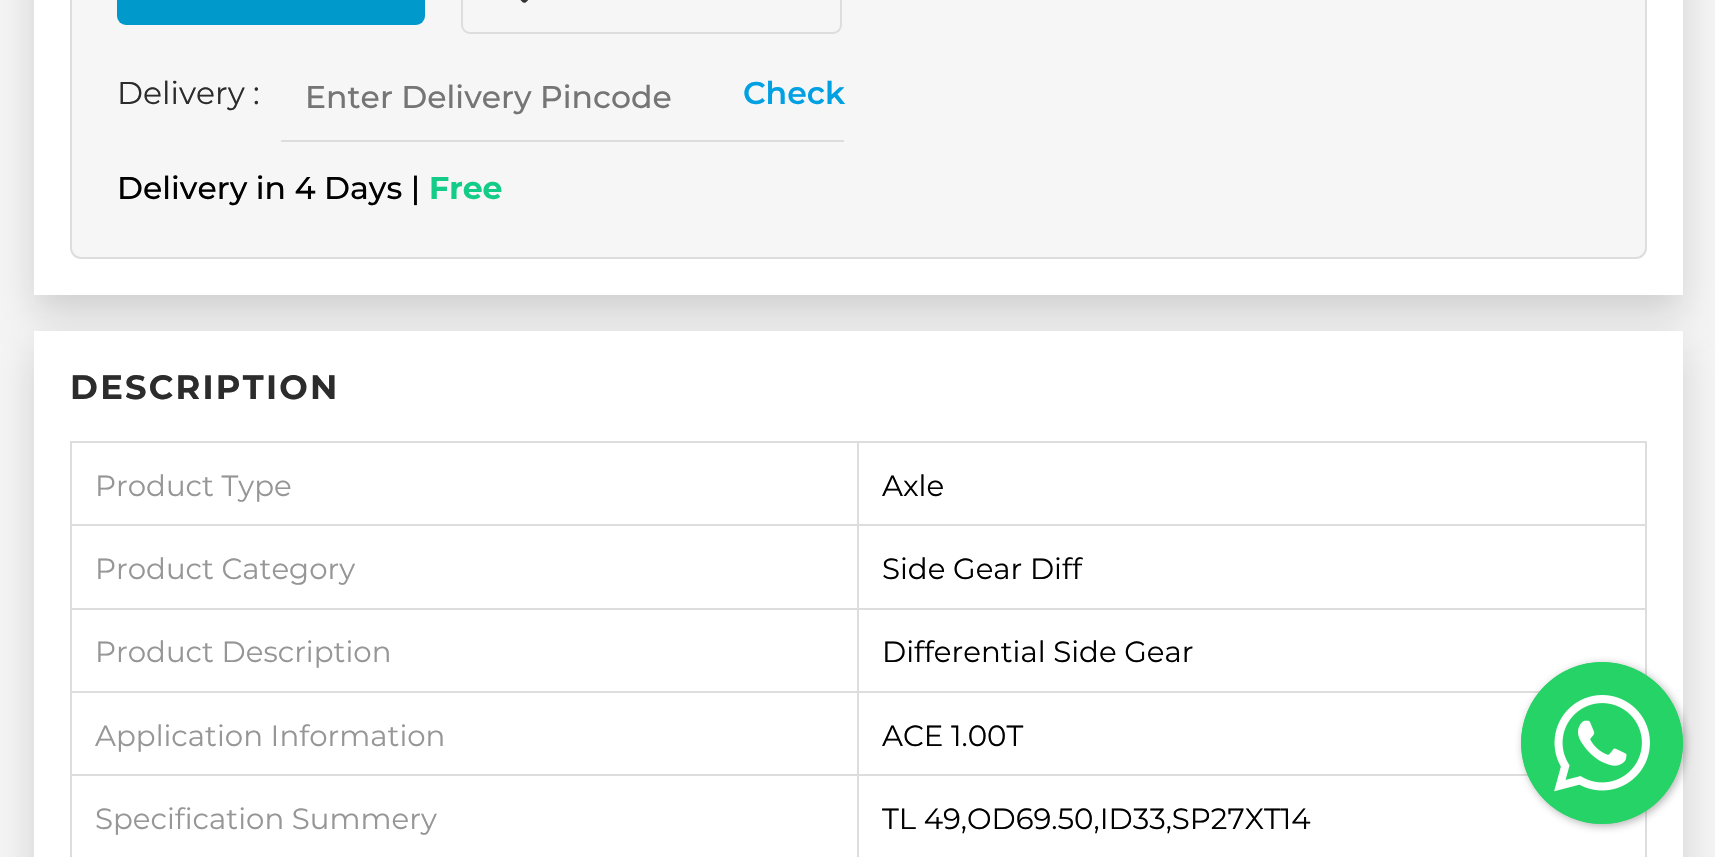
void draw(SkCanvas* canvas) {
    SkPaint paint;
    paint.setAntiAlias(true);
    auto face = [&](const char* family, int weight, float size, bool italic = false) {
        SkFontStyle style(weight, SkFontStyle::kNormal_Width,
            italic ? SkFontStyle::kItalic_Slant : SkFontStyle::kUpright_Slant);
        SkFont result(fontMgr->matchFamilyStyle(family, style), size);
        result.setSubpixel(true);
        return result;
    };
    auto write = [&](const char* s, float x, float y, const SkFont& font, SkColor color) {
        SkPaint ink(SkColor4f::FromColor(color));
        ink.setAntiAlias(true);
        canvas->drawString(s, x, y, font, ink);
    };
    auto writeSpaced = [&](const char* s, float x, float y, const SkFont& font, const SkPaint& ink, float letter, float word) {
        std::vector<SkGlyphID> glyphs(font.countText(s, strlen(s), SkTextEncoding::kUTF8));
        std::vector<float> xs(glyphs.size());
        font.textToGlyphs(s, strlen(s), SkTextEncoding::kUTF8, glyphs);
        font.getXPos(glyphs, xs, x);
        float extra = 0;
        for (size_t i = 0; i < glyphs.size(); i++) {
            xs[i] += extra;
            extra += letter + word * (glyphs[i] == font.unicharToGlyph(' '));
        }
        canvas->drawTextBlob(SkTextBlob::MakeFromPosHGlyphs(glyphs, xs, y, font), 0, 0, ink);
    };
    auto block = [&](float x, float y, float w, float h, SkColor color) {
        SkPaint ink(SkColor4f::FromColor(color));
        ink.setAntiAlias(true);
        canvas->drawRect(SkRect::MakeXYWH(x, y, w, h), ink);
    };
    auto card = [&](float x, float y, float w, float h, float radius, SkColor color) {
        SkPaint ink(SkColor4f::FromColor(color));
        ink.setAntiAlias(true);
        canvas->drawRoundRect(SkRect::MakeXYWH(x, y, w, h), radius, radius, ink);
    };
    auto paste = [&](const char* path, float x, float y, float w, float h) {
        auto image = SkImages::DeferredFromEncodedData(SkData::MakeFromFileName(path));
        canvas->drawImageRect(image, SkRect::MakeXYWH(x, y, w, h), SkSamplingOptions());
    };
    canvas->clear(SkColorSetRGB(245, 245, 245));
    paint.setColor(SkColorSetARGB(38, 0, 0, 0));
    paint.setMaskFilter(SkMaskFilter::MakeBlur(kNormal_SkBlurStyle, 18));
    canvas->drawRect(SkRect::MakeXYWH(34, -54, 1649, 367), paint);
    paint.setMaskFilter(nullptr);
    block(34, 0, 1649, 295, SK_ColorWHITE);
    paint.setColor(SkColorSetRGB(246, 246, 246));
    canvas->drawRoundRect(SkRect::MakeXYWH(71, -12, 1575, 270), 10, 10, paint);
    paint.setStyle(SkPaint::kStroke_Style);
    paint.setStrokeWidth(2);
    paint.setColor(SkColorSetRGB(221, 221, 221));
    canvas->drawRoundRect(SkRect::MakeXYWH(71, -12, 1575, 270), 10, 10, paint);
    card(117, -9, 308, 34, 9, SkColorSetRGB(0, 153, 204));
    canvas->drawRoundRect(SkRect::MakeXYWH(462, -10, 379, 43), 8, 8, paint);
    paste("pic1.png", 520, 0, 9, 3);
    auto kFont1 = face("Montserrat", 400, 31.5f);
    write("Delivery :", 117, 104, kFont1, SkColorSetRGB(44, 44, 44));
    block(281, 140, 563, 2, SkColorSetRGB(221, 221, 221));
    auto kFont2 = face("Montserrat", 500, 31.5f);
    write("Enter Delivery Pincode", 305, 108, kFont2, SkColorSetRGB(117, 117, 117));
    auto kFont3 = face("Montserrat", 600, 31.5f);
    write("Check", 743, 104, kFont3, SkColorSetRGB(0, 160, 227));
    write("Delivery in 4 Days |", 117, 199, kFont2, SK_ColorBLACK);
    auto kFont4 = face("Montserrat", 700, 31.5f);
    write("Free", 429, 199, kFont4, SkColorSetRGB(18, 204, 135));
    paint.setStyle(SkPaint::kFill_Style);
    paint.setColor(SkColorSetARGB(38, 0, 0, 0));
    paint.setMaskFilter(SkMaskFilter::MakeBlur(kNormal_SkBlurStyle, 18));
    canvas->drawRect(SkRect::MakeXYWH(34, 349, 1649, 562), paint);
    paint.setMaskFilter(nullptr);
    block(34, 331, 1649, 526, SK_ColorWHITE);
    auto kFont5 = face("Montserrat", 700, 33.75f);
    paint.setColor(SkColorSetRGB(44, 44, 44));
    writeSpaced("DESCRIPTION", 70, 399, kFont5, paint, 2.25f, 0);
    block(70, 441, 1577, 2, SkColorSetRGB(221, 221, 221));
    block(1645, 441, 2, 416, SkColorSetRGB(221, 221, 221));
    block(70, 441, 2, 416, SkColorSetRGB(221, 221, 221));
    block(70, 524, 1577, 2, SkColorSetRGB(221, 221, 221));
    auto kFont6 = face("Montserrat", 400, 29.25f);
    write("Product Type", 95, 496, kFont6, SkColorSetRGB(150, 150, 150));
    write("Axle", 882, 496, kFont6, SK_ColorBLACK);
    block(70, 608, 1577, 2, SkColorSetRGB(221, 221, 221));
    write("Product Category", 95, 579, kFont6, SkColorSetRGB(150, 150, 150));
    write("Side Gear Diff", 882, 579, kFont6, SK_ColorBLACK);
    block(70, 691, 1470, 2, SkColorSetRGB(221, 221, 221));
    write("Product Description", 95, 662, kFont6, SkColorSetRGB(150, 150, 150));
    write("Differential Side Gear", 882, 662, kFont6, SK_ColorBLACK);
    block(70, 774, 1458, 2, SkColorSetRGB(221, 221, 221));
    write("Application Information", 95, 746, kFont6, SkColorSetRGB(150, 150, 150));
    write("ACE 1.00T", 882, 746, kFont6, SK_ColorBLACK);
    block(857, 441, 2, 416, SkColorSetRGB(221, 221, 221));
    write("Specification Summery", 95, 829, kFont6, SkColorSetRGB(150, 150, 150));
    write("TL 49,OD69.50,ID33,SP27XT14", 882, 829, kFont6, SK_ColorBLACK);
    paint.setColor(SkColorSetARGB(102, 60, 60, 60));
    paint.setMaskFilter(SkMaskFilter::MakeBlur(kNormal_SkBlurStyle, 4.5f));
    canvas->drawRoundRect(SkRect::MakeXYWH(1523, 664, 162, 162), 81, 81, paint);
    paint.setMaskFilter(nullptr);
    paint.setColor(SkColorSetRGB(37, 211, 102));
    canvas->drawCircle(1602, 743, 81, paint);
    paste("pic2.png", 1521, 662, 162, 162);
}
